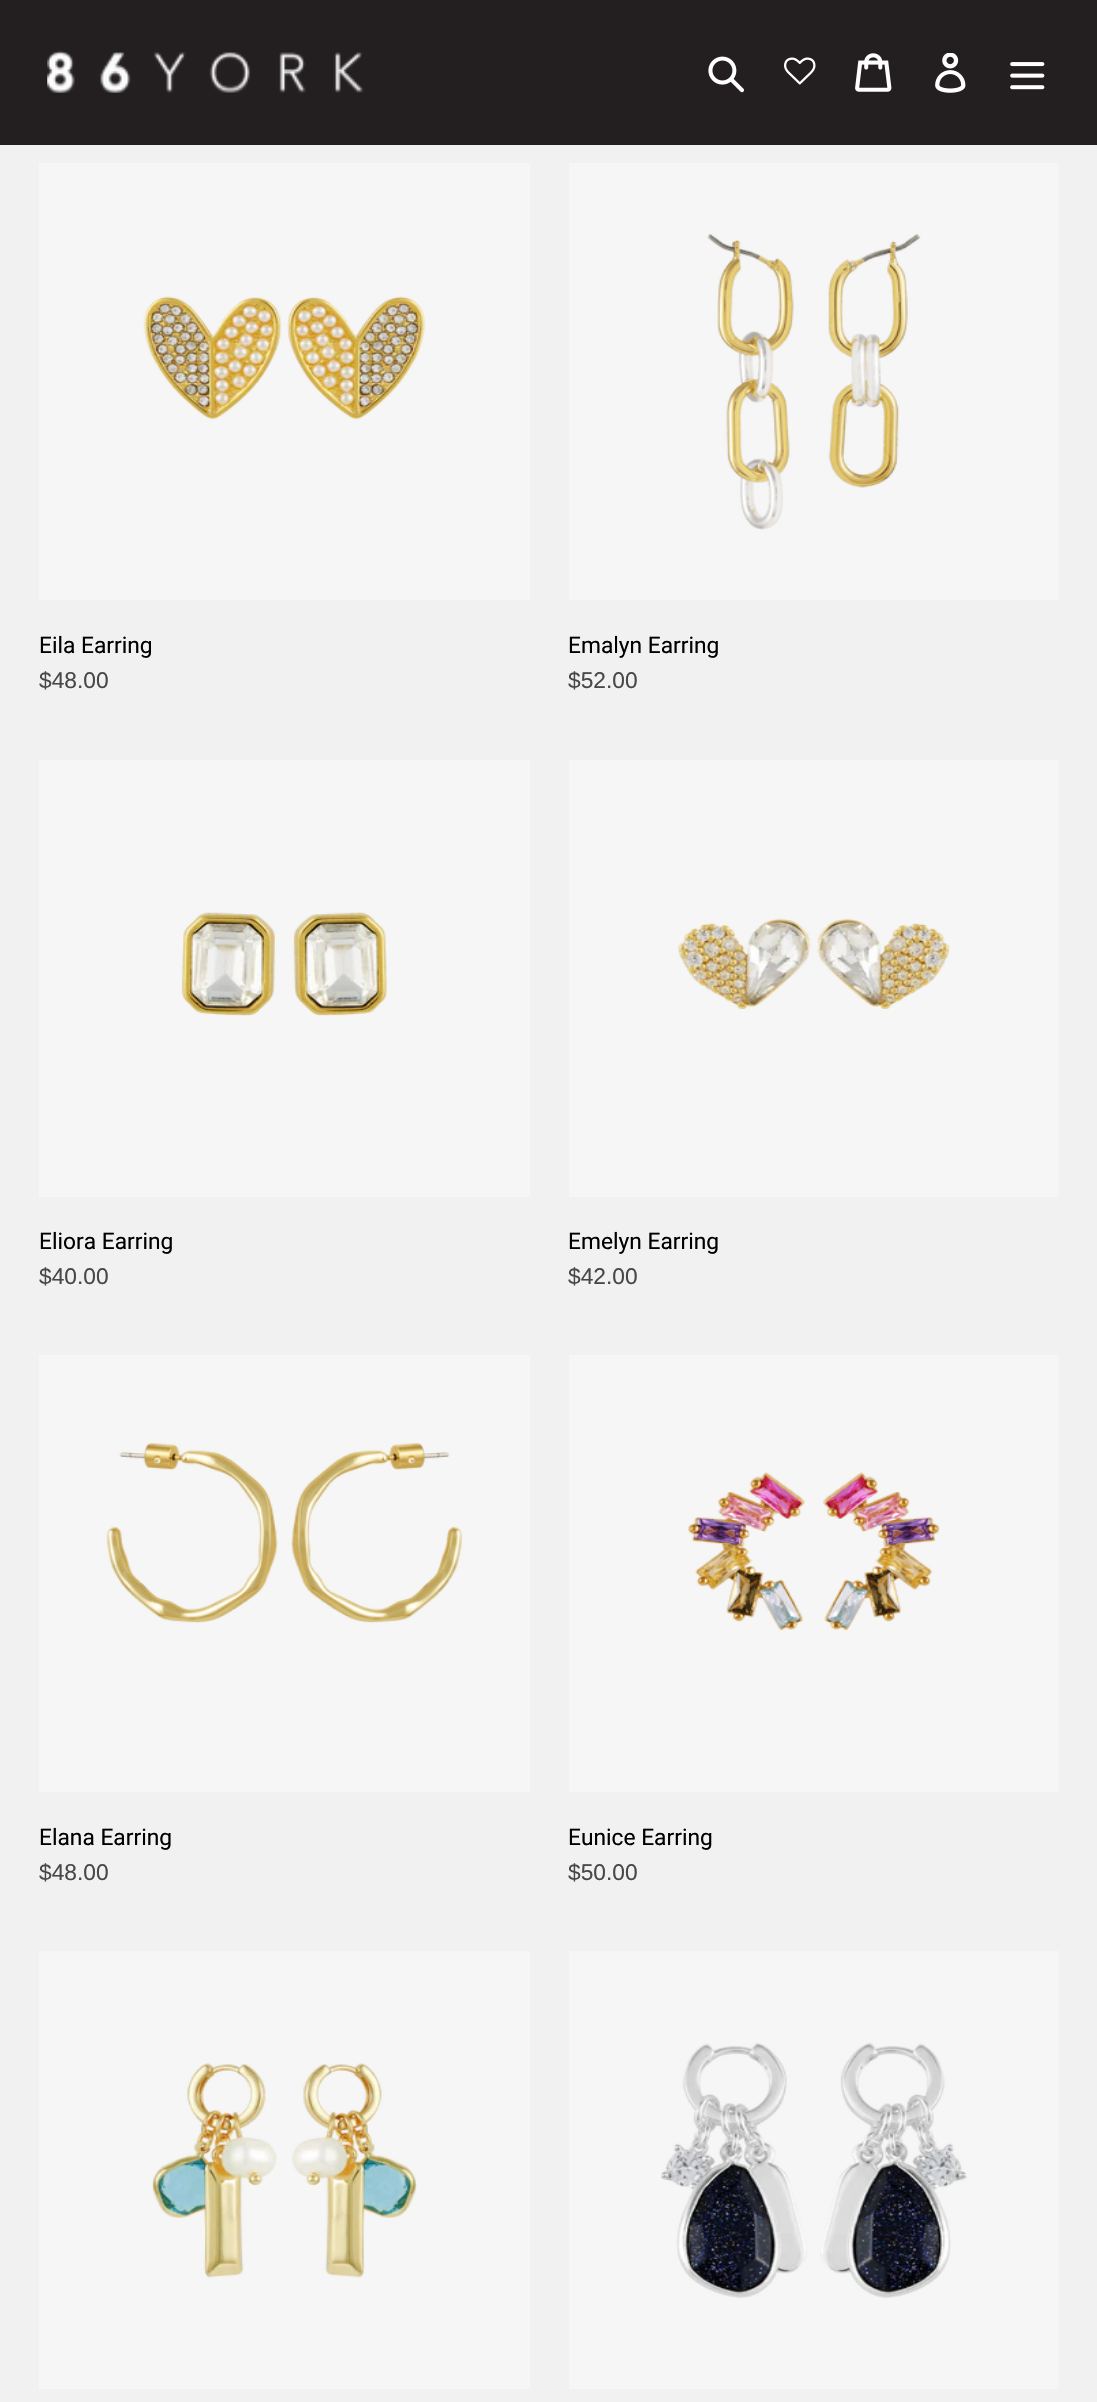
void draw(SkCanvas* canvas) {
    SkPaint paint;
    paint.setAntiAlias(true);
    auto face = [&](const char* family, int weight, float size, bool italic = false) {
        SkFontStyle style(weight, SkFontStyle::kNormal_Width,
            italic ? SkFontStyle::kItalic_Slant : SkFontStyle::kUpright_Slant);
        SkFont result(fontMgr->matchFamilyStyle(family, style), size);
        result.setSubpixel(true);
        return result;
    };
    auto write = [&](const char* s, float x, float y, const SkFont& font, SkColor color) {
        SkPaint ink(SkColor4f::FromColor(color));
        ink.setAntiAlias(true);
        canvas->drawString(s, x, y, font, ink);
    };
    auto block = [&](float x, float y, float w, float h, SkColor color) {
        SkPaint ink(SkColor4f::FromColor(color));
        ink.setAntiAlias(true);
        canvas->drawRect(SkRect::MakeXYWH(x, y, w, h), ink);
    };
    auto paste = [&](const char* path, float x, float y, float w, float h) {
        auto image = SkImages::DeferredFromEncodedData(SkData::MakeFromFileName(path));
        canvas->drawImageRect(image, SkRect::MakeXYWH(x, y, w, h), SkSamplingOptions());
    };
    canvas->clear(SkColorSetRGB(241, 241, 241));
    block(0, 0, 1097, 145, SkColorSetRGB(35, 31, 32));
    paste("pic1.png", 47, 50, 317, 43);
    paste("pic2.png", 708, 56, 36, 37);
    paste("pic3.png", 784, 57, 32, 28);
    paste("pic4.png", 855, 53, 37, 39);
    paste("pic5.png", 935, 53, 31, 40);
    paste("pic6.png", 1010, 62, 35, 28);
    block(39, 163, 491, 437, SkColorSetRGB(246, 246, 246));
    paste("pic7.png", 143, 296, 283, 124);
    auto kFont1 = face("Roboto", 400, 22.75f);
    write("Eila Earring", 39, 653, kFont1, SK_ColorBLACK);
    auto kFont2 = face("Liberation Sans", 400, 22.75f);
    write("$48.00", 39, 688, kFont2, SkColorSetRGB(72, 72, 72));
    block(569, 163, 490, 437, SkColorSetRGB(246, 246, 246));
    paste("pic8.png", 707, 233, 214, 297);
    write("Emalyn Earring", 568, 653, kFont1, SK_ColorBLACK);
    write("$52.00", 568, 688, kFont2, SkColorSetRGB(72, 72, 72));
    block(39, 760, 491, 437, SkColorSetRGB(246, 246, 246));
    paste("pic9.png", 181, 912, 206, 104);
    write("Eliora Earring", 39, 1249, kFont1, SK_ColorBLACK);
    write("$40.00", 39, 1284, kFont2, SkColorSetRGB(72, 72, 72));
    block(569, 760, 490, 437, SkColorSetRGB(246, 246, 246));
    paste("pic10.png", 677, 918, 273, 92);
    write("Emelyn Earring", 568, 1249, kFont1, SK_ColorBLACK);
    write("$42.00", 568, 1284, kFont2, SkColorSetRGB(72, 72, 72));
    block(39, 1355, 491, 437, SkColorSetRGB(246, 246, 246));
    paste("pic11.png", 106, 1443, 357, 180);
    write("Elana Earring", 39, 1845, kFont1, SK_ColorBLACK);
    write("$48.00", 39, 1880, kFont2, SkColorSetRGB(72, 72, 72));
    block(569, 1355, 490, 437, SkColorSetRGB(246, 246, 246));
    paste("pic12.png", 688, 1472, 252, 159);
    write("Eunice Earring", 568, 1845, kFont1, SK_ColorBLACK);
    write("$50.00", 568, 1880, kFont2, SkColorSetRGB(72, 72, 72));
    block(39, 1951, 491, 438, SkColorSetRGB(246, 246, 246));
    paste("pic13.png", 152, 2063, 265, 215);
    block(569, 1951, 490, 438, SkColorSetRGB(246, 246, 246));
    paste("pic14.png", 661, 2042, 306, 256);
}
